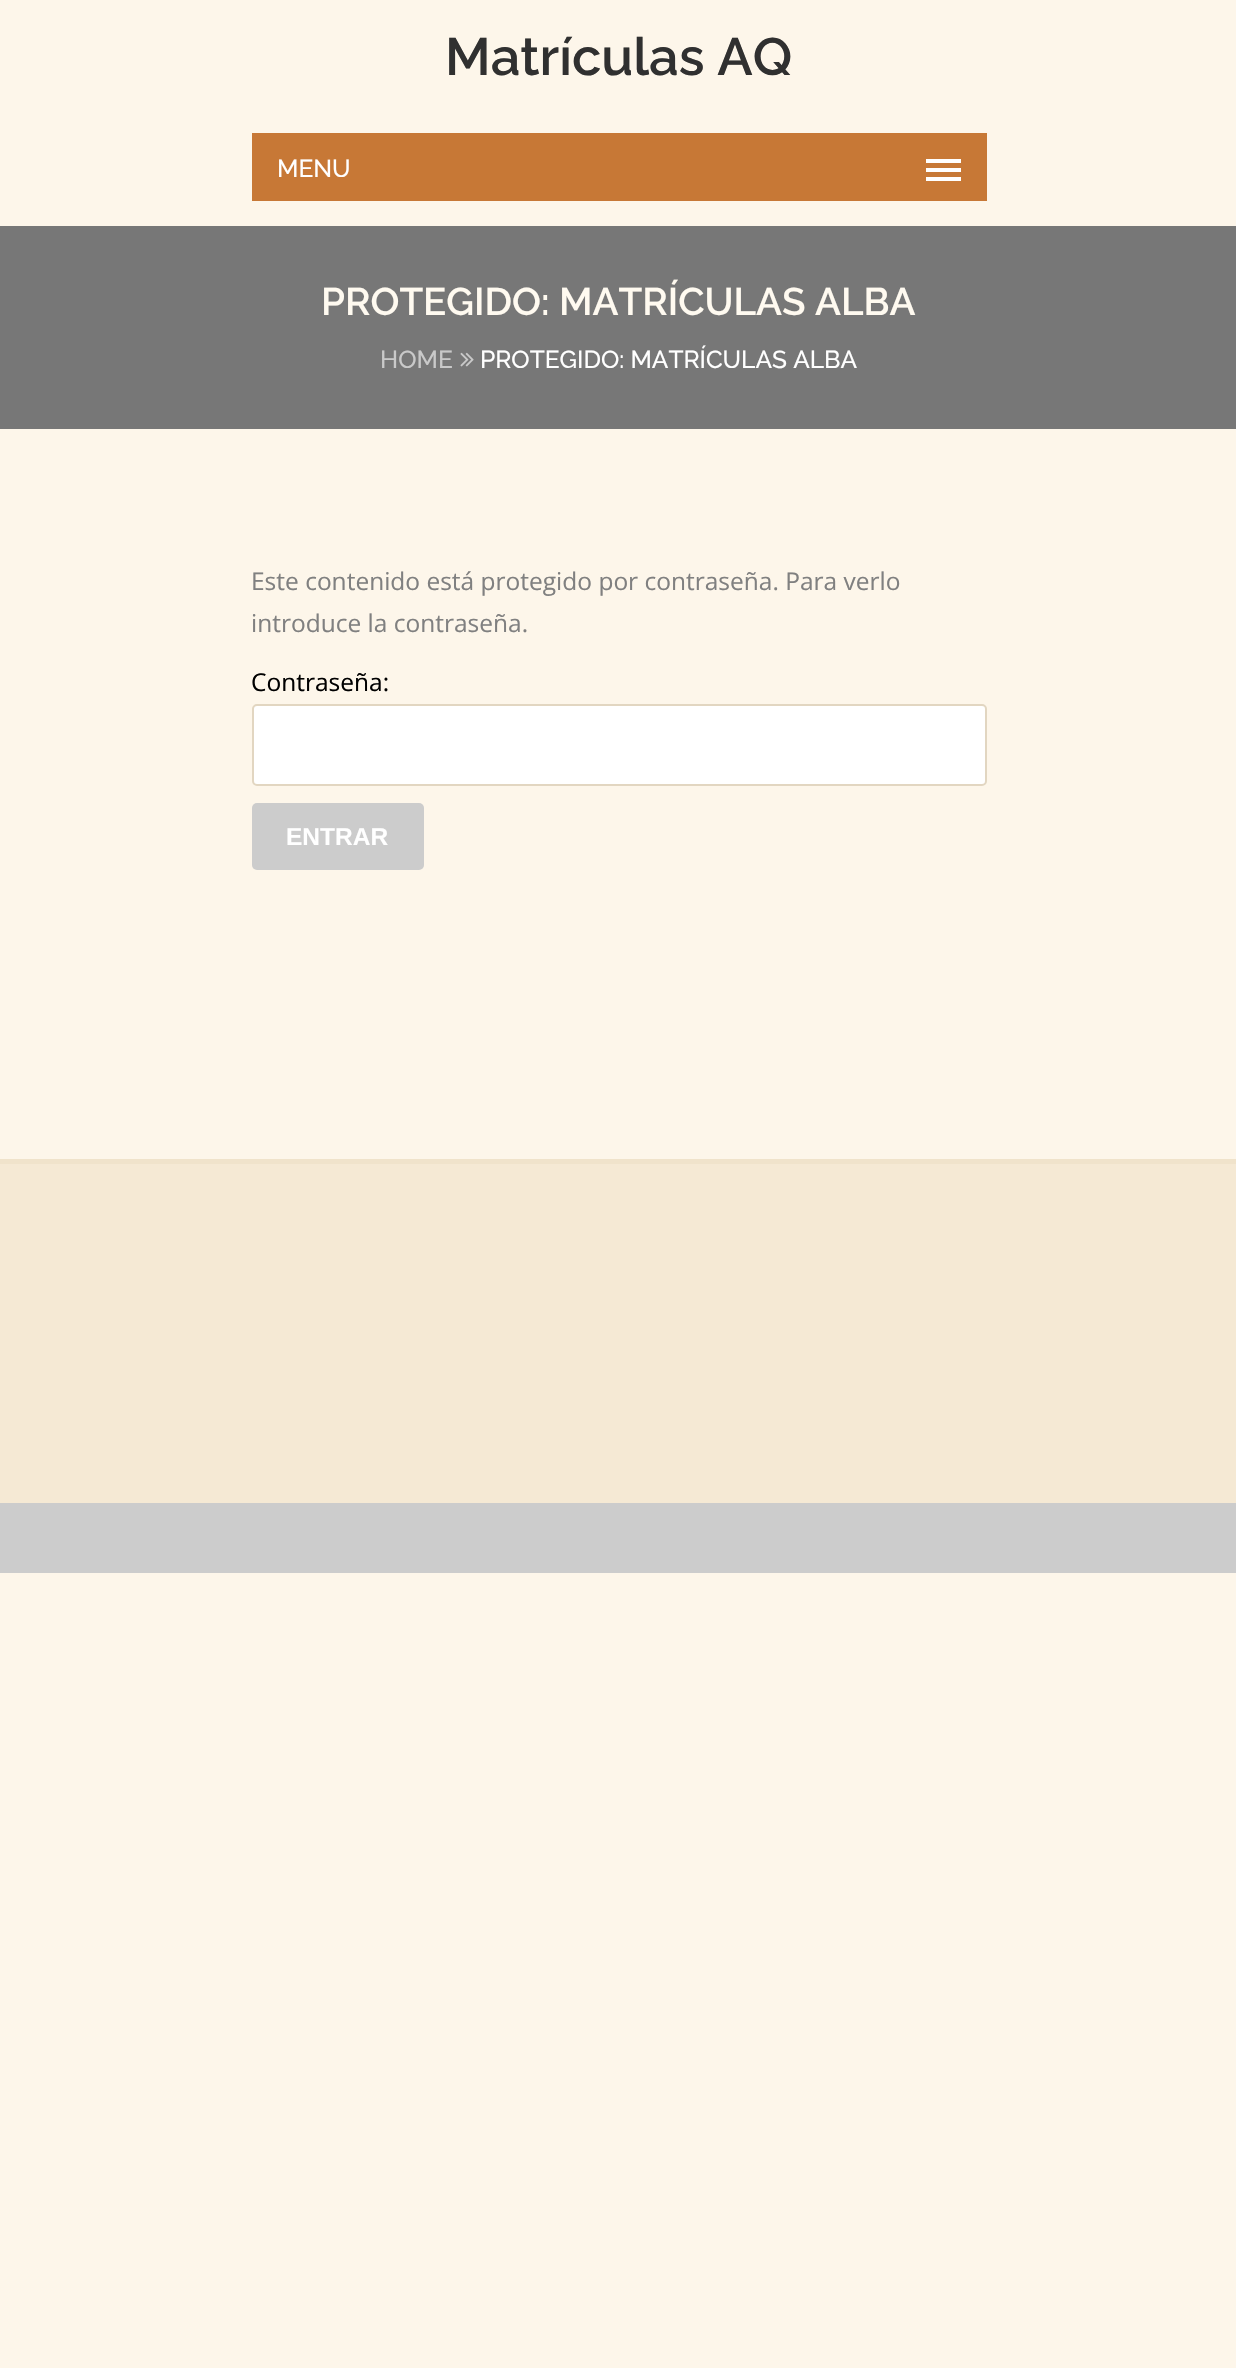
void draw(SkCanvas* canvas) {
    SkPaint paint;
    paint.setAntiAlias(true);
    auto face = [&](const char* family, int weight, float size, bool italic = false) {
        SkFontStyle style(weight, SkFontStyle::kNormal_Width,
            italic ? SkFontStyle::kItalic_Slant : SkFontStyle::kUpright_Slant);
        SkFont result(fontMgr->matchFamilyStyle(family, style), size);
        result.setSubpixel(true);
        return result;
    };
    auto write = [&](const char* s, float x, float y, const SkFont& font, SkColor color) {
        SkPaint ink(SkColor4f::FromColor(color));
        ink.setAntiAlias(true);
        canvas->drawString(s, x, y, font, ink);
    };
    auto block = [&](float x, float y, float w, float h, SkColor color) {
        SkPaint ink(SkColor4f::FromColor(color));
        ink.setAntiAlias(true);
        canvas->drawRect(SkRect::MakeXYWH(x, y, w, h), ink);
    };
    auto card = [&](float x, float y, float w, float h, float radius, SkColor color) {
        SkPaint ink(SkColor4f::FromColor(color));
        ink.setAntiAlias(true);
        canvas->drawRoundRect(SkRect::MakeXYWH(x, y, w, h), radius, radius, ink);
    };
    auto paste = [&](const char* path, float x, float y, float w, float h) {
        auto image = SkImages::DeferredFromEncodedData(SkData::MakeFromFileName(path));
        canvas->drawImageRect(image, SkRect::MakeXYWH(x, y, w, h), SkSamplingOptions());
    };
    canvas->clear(SkColorSetRGB(253, 246, 234));
    auto kFont1 = face("Raleway", 600, 52.5f);
    write("Matrículas AQ", 445, 75, kFont1, SkColorSetRGB(48, 48, 48));
    block(252, 133, 735, 68, SkColorSetRGB(199, 120, 54));
    auto kFont2 = face("Raleway", 500, 24.5f);
    write("MENU", 277, 177, kFont2, SK_ColorWHITE);
    block(926, 168, 35, 4, SK_ColorWHITE);
    block(926, 159, 35, 4, SK_ColorWHITE);
    block(926, 177, 35, 4, SK_ColorWHITE);
    block(0, 226, 1236, 203, SkColorSetRGB(119, 119, 119));
    auto kFont3 = face("Raleway", 600, 38.5f);
    write("PROTEGIDO: MATRÍCULAS ALBA", 321, 315, kFont3, SkColorSetRGB(255, 250, 240));
    write("HOME", 380, 368, kFont2, SkColorSetRGB(201, 201, 201));
    paste("pic1.png", 460, 352, 14, 15);
    write("PROTEGIDO: MATRÍCULAS ALBA", 480, 368, kFont2, SK_ColorWHITE);
    auto kFont4 = face("Open Sans", 400, 24.5f);
    write("Este contenido está protegido por contraseña. Para verlo", 251, 590, kFont4, SkColorSetRGB(128, 128, 128));
    write("introduce la contraseña.", 251, 632, kFont4, SkColorSetRGB(128, 128, 128));
    write("Contraseña:", 251, 691, kFont4, SK_ColorBLACK);
    paint.setColor(SK_ColorWHITE);
    canvas->drawRoundRect(SkRect::MakeXYWH(253, 705, 733, 80), 4, 4, paint);
    paint.setStyle(SkPaint::kStroke_Style);
    paint.setStrokeWidth(2);
    paint.setColor(SkColorSetRGB(226, 214, 193));
    canvas->drawRoundRect(SkRect::MakeXYWH(253, 705, 733, 80), 4, 4, paint);
    card(252, 803, 172, 67, 5, SkColorSetRGB(204, 204, 204));
    auto kFont5 = face("Liberation Sans", 700, 24.5f);
    write("ENTRAR", 286, 845, kFont5, SK_ColorWHITE);
    block(0, 1164, 1236, 339, SkColorSetRGB(245, 233, 212));
    block(0, 1159, 1236, 5, SkColorSetRGB(240, 227, 203));
    block(0, 1503, 1236, 70, SkColorSetRGB(204, 204, 204));
}
